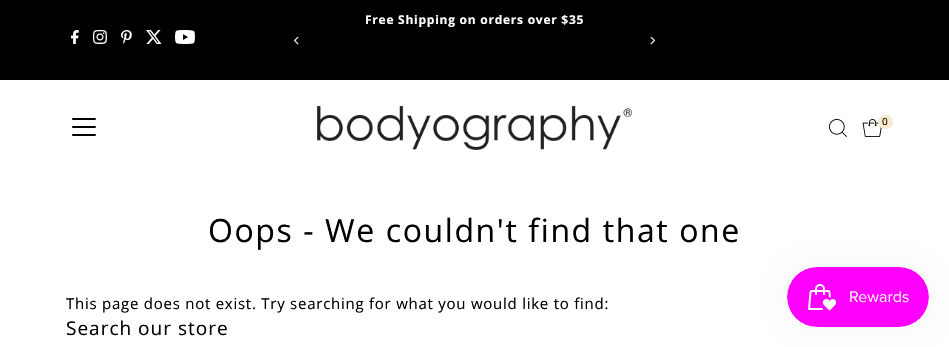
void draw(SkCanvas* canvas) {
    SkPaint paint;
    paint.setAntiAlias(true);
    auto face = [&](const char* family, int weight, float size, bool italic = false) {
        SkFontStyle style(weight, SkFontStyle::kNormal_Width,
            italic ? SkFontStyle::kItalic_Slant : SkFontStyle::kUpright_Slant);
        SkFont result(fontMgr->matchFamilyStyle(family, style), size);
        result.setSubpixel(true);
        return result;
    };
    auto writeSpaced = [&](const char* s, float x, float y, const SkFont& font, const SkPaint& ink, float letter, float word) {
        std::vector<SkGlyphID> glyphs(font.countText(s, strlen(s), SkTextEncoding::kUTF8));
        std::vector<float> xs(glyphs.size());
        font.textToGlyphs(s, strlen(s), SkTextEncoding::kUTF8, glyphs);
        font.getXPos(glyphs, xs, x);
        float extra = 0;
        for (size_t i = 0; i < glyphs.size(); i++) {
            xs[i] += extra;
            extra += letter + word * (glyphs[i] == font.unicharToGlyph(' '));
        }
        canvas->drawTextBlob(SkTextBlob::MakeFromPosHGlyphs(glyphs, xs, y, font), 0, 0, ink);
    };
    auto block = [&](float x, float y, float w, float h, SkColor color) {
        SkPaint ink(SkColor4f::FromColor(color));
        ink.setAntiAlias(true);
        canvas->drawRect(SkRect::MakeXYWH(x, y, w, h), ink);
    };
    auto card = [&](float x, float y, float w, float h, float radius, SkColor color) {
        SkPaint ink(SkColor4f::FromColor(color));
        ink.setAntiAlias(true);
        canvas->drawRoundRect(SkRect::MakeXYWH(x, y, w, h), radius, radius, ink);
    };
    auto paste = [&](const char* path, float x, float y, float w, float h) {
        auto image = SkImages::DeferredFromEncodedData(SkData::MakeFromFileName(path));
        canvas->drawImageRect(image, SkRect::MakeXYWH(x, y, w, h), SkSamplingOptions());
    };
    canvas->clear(SK_ColorWHITE);
    block(0, 0, 949, 80, SK_ColorBLACK);
    auto kFont1 = face("Open Sans", 700, 12);
    paint.setColor(SK_ColorWHITE);
    writeSpaced("Free Shipping on orders over $35", 365, 24, kFont1, paint, 0.75f, 0);
    paste("pic1.png", 293, 37, 6, 8);
    paste("pic2.png", 650, 37, 6, 8);
    paste("pic3.png", 71, 30, 8, 14);
    paste("pic4.png", 93, 30, 14, 14);
    paste("pic5.png", 121, 30, 11, 14);
    paste("pic6.png", 146, 30, 16, 14);
    paste("pic7.png", 175, 30, 20, 14);
    paste("pic8.png", 72, 118, 24, 18);
    paste("pic9.png", 317, 106, 315, 44);
    paste("pic10.png", 829, 119, 18, 18);
    paste("pic11.png", 862, 119, 20, 18);
    card(878, 115, 15, 14, 7, SkColorSetRGB(248, 234, 206));
    auto kFont2 = face("Open Sans", 400, 10);
    paint.setColor(SK_ColorBLACK);
    writeSpaced("0", 882, 125, kFont2, paint, 0.75f, 0);
    auto kFont3 = face("Open Sans", 400, 32);
    writeSpaced("Oops - We couldn't find that one", 208, 242, kFont3, paint, 1.6f, 0);
    auto kFont4 = face("Open Sans", 400, 15);
    writeSpaced("This page does not exist. Try searching for what you would like to find:", 66, 309, kFont4, paint, 0.75f, 0);
    auto kFont5 = face("Open Sans", 400, 19);
    writeSpaced("Search our store", 66, 335, kFont5, paint, 1, 0);
    paint.setColor(SkColorSetARGB(13, 0, 0, 0));
    paint.setMaskFilter(SkMaskFilter::MakeBlur(kNormal_SkBlurStyle, 12.5f));
    canvas->drawRoundRect(SkRect::MakeXYWH(787, 267, 142, 60), 30, 30, paint);
    paint.setMaskFilter(nullptr);
    paste("pic12.png", 787, 267, 142, 60);
}
